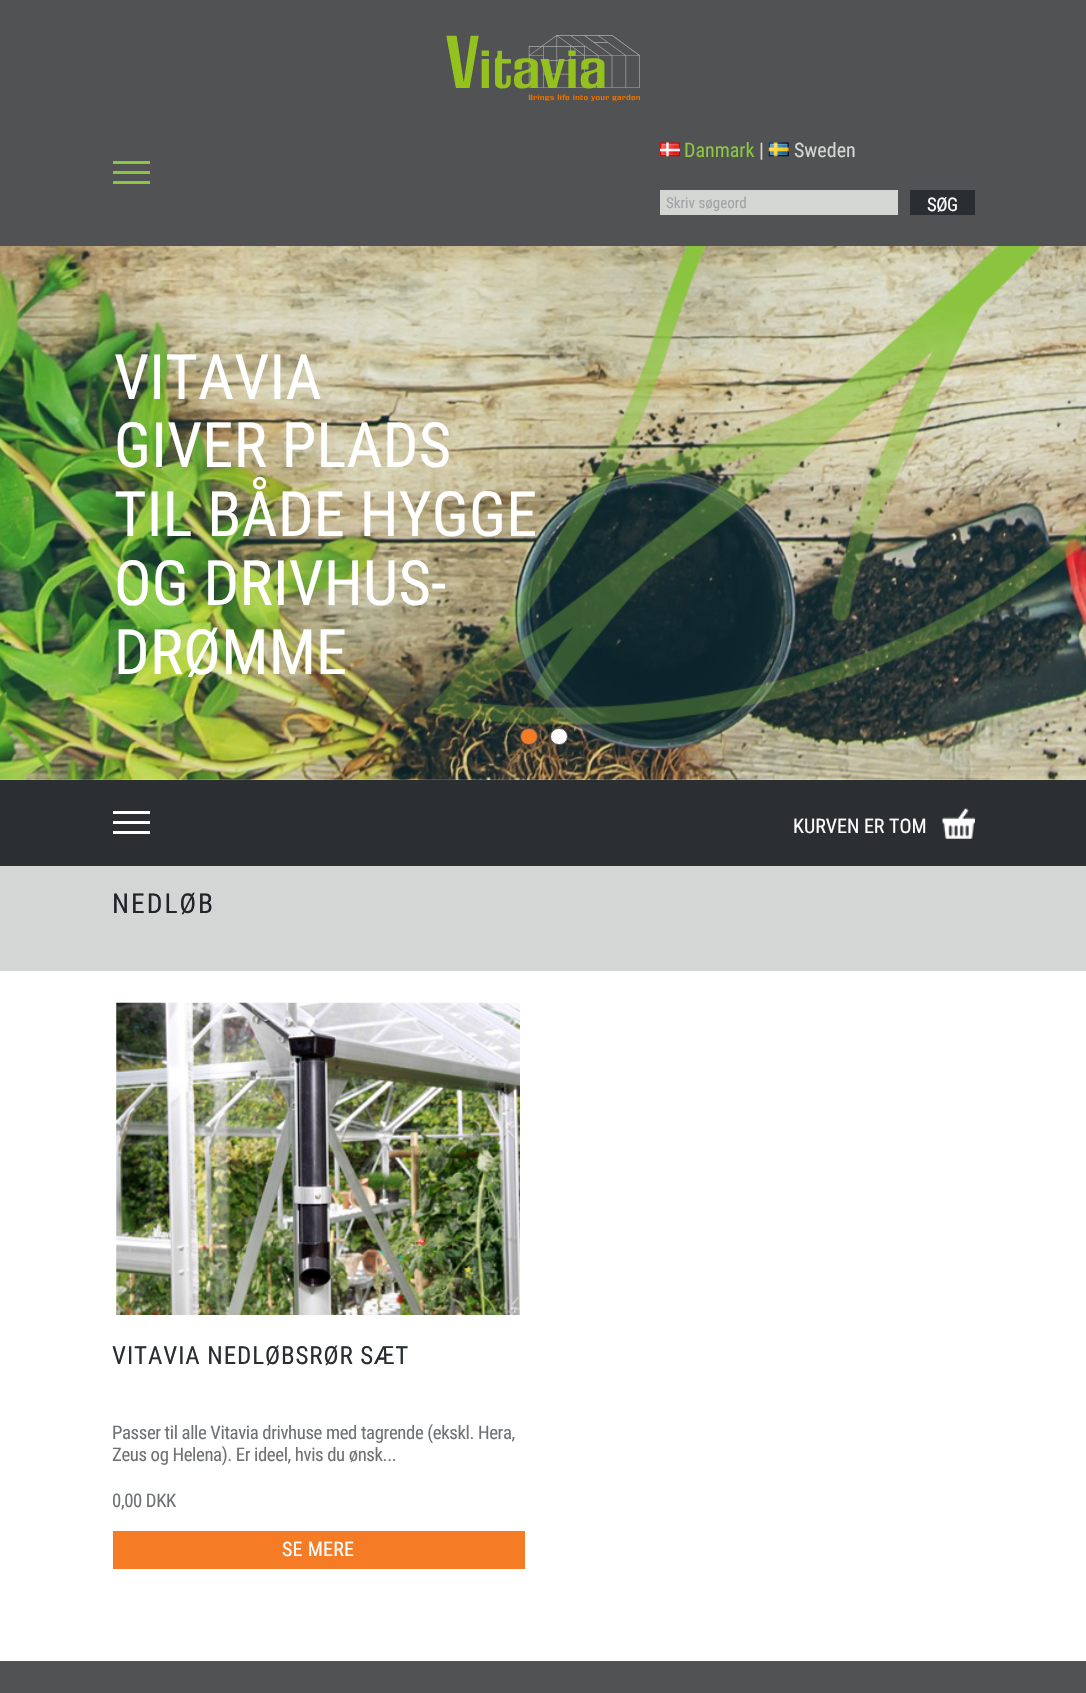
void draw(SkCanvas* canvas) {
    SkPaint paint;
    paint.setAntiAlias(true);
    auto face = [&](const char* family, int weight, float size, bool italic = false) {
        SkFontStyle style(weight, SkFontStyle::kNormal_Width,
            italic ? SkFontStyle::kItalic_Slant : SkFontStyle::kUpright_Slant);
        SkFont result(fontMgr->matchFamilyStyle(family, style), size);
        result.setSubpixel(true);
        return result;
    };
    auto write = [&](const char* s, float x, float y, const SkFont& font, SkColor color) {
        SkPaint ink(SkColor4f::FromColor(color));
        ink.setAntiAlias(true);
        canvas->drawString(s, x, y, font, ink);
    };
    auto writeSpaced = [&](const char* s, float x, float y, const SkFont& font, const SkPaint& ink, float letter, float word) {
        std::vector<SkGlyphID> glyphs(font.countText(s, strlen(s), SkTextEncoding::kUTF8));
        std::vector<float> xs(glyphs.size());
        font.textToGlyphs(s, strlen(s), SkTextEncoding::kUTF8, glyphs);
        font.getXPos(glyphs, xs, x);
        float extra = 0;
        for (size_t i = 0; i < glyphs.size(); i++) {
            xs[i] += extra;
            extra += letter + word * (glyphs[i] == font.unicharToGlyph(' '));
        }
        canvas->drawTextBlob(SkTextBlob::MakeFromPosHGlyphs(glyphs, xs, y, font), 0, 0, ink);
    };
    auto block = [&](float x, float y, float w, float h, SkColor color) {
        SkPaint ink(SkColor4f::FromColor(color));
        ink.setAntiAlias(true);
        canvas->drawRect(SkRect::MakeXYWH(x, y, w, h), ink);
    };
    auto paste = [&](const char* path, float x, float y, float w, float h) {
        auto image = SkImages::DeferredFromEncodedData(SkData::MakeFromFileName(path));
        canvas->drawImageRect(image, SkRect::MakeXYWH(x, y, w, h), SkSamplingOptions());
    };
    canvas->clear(SK_ColorWHITE);
    block(0, 0, 1086, 246, SkColorSetRGB(80, 82, 83));
    paste("pic1.png", 446, 35, 194, 66);
    block(113, 161, 37, 3, SkColorSetRGB(140, 198, 64));
    block(113, 171, 37, 3, SkColorSetRGB(140, 198, 64));
    block(113, 181, 37, 3, SkColorSetRGB(140, 198, 64));
    paste("pic2.png", 660, 142, 20, 15);
    auto kFont1 = face("Roboto Condensed", 400, 20);
    write("Danmark", 684, 157, kFont1, SkColorSetRGB(141, 198, 63));
    write("|", 759, 157, kFont1, SkColorSetRGB(212, 214, 212));
    paste("pic3.png", 768, 142, 21, 15);
    write("Sweden", 794, 157, kFont1, SkColorSetRGB(212, 214, 212));
    block(660, 190, 238, 25, SkColorSetRGB(212, 214, 212));
    auto kFont2 = face("Roboto Condensed", 400, 15);
    write("Skriv søgeord", 666, 208, kFont2, SkColorSetRGB(159, 163, 164));
    block(910, 190, 65, 25, SkColorSetRGB(43, 46, 49));
    auto kFont3 = face("Roboto Condensed", 400, 18.75f);
    paint.setColor(SK_ColorWHITE);
    writeSpaced("SØG", 927, 211, kFont3, paint, -0.5f, 0);
    paste("pic4.png", 0, 246, 1086, 534);
    auto kFont4 = face("Roboto Condensed", 400, 62.5f);
    writeSpaced("VITAVIA", 114, 399, kFont4, paint, 0.25f, 0);
    writeSpaced("GIVER PLADS", 114, 467, kFont4, paint, 0.25f, 0);
    writeSpaced("TIL BÅDE HYGGE", 114, 536, kFont4, paint, 0.25f, 0);
    writeSpaced("OG DRIVHUS-", 114, 605, kFont4, paint, 0.25f, 0);
    writeSpaced("DRØMME", 114, 674, kFont4, paint, 0.25f, 0);
    paste("pic5.png", 425, 246, 661, 479);
    paint.setColor(SkColorSetRGB(245, 124, 36));
    canvas->drawRoundRect(SkRect::MakeXYWH(520.5f, 728.5f, 17, 16), 8, 8, paint);
    paint.setStyle(SkPaint::kStroke_Style);
    paint.setStrokeWidth(1);
    paint.setColor(SkColorSetRGB(80, 82, 83));
    canvas->drawRoundRect(SkRect::MakeXYWH(520.5f, 728.5f, 17, 16), 8, 8, paint);
    paint.setStyle(SkPaint::kFill_Style);
    paint.setColor(SK_ColorWHITE);
    canvas->drawRoundRect(SkRect::MakeXYWH(550.5f, 728.5f, 17, 16), 8, 8, paint);
    paint.setStyle(SkPaint::kStroke_Style);
    paint.setColor(SkColorSetRGB(80, 82, 83));
    canvas->drawRoundRect(SkRect::MakeXYWH(550.5f, 728.5f, 17, 16), 8, 8, paint);
    block(0, 780, 1086, 86, SkColorSetRGB(43, 47, 50));
    block(113, 811, 37, 3, SK_ColorWHITE);
    block(113, 821, 37, 3, SK_ColorWHITE);
    block(113, 831, 37, 3, SK_ColorWHITE);
    write("KURVEN ER TOM", 793, 833, kFont1, SK_ColorWHITE);
    paste("pic6.png", 942, 808, 33, 31);
    block(0, 866, 1086, 105, SkColorSetRGB(212, 214, 213));
    auto kFont5 = face("Roboto Condensed", 400, 27.5f);
    paint.setStyle(SkPaint::kFill_Style);
    paint.setColor(SkColorSetRGB(33, 37, 41));
    writeSpaced("NEDLØB", 112, 913, kFont5, paint, 2, 0);
    paste("pic7.png", 116, 1002, 404, 313);
    auto kFont6 = face("Roboto Condensed", 400, 25);
    paint.setColor(SkColorSetRGB(42, 46, 49));
    writeSpaced("VITAVIA NEDLØBSRØR SÆT", 112, 1364, kFont6, paint, 0.9f, 0);
    paint.setColor(SkColorSetRGB(111, 114, 116));
    writeSpaced("Passer til alle Vitavia drivhuse med tagrende (ekskl. Hera,", 112, 1439, kFont3, paint, -0.38f, 0);
    writeSpaced("Zeus og Helena). Er ideel, hvis du ønsk...", 112, 1461, kFont3, paint, -0.38f, 0);
    writeSpaced("0,00 DKK", 112, 1507, kFont3, paint, -0.38f, 0);
    block(113, 1531, 412, 38, SkColorSetRGB(245, 124, 36));
    paint.setColor(SK_ColorWHITE);
    writeSpaced("SE MERE", 282, 1556, kFont1, paint, 0.25f, 0);
    block(0, 1661, 1086, 32, SkColorSetRGB(81, 82, 84));
}
